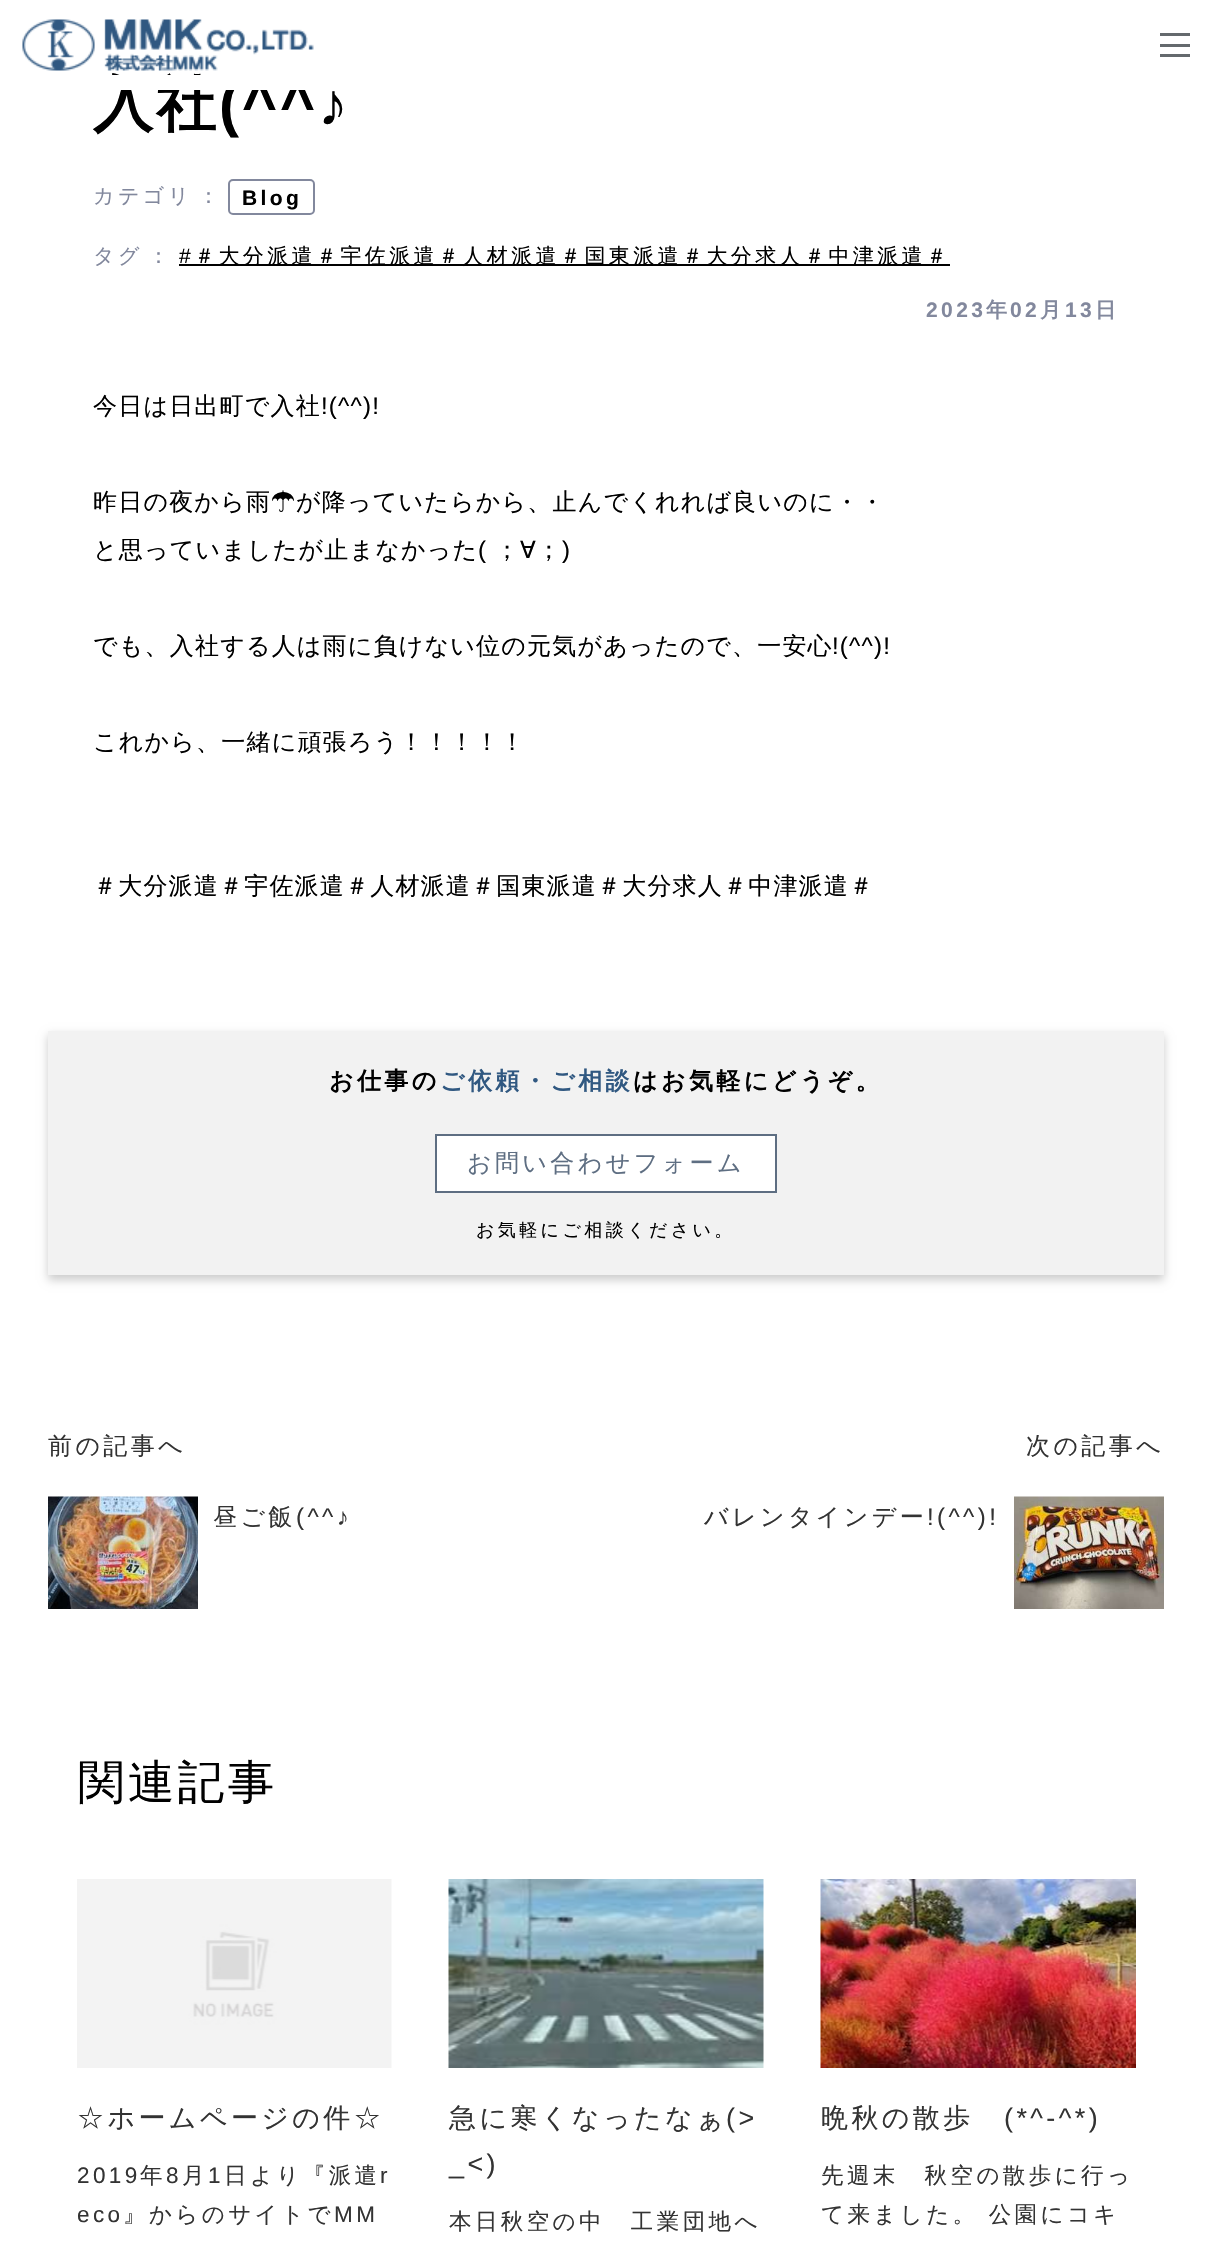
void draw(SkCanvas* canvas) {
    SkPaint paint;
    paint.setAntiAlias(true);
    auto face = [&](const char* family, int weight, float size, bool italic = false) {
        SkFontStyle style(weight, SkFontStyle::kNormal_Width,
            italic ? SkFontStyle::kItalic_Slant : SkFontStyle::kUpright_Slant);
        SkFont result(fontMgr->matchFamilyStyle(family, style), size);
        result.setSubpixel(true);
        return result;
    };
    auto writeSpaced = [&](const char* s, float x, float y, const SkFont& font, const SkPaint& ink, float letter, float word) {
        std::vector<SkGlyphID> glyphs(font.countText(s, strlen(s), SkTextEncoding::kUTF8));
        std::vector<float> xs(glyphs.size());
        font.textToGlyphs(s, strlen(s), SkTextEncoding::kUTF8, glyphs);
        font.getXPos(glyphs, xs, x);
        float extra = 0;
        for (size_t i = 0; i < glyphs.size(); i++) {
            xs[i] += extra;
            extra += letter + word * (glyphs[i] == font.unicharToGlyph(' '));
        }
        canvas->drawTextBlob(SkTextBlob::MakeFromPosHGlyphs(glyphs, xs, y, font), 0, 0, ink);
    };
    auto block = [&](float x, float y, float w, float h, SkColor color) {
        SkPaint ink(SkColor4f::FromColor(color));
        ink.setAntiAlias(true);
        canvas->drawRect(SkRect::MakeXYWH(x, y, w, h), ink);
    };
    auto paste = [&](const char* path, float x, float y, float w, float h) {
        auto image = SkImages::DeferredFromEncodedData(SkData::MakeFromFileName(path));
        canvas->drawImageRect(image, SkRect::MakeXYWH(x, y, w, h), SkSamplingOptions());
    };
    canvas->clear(SK_ColorWHITE);
    paste("pic1.png", 22, 19, 292, 52);
    block(1160, 33, 30, 3, SkColorSetRGB(100, 105, 109));
    block(1160, 44, 30, 3, SkColorSetRGB(100, 105, 109));
    block(1160, 54, 30, 3, SkColorSetRGB(100, 105, 109));
    auto kFont1 = face("WenQuanYi Zen Hei", 700, 60);
    paint.setColor(SK_ColorBLACK);
    writeSpaced("入社", 93, 125, kFont1, paint, 3, 0);
    auto kFont2 = face("Liberation Sans", 700, 60);
    writeSpaced("(^^♪", 219, 125, kFont2, paint, 3, 0);
    block(111, 75, 194, 15, SK_ColorWHITE);
    auto kFont3 = face("WenQuanYi Zen Hei", 500, 21);
    paint.setColor(SkColorSetRGB(130, 136, 157));
    writeSpaced("カテゴリ", 93, 203, kFont3, paint, 3.4f, 0);
    writeSpaced("：", 198, 203, kFont3, paint, 3.4f, 0);
    paint.setStyle(SkPaint::kStroke_Style);
    paint.setStrokeWidth(2);
    canvas->drawRoundRect(SkRect::MakeXYWH(229, 180, 85, 34), 4, 4, paint);
    auto kFont4 = face("Liberation Sans", 700, 21);
    paint.setStyle(SkPaint::kFill_Style);
    paint.setColor(SK_ColorBLACK);
    writeSpaced("Blog", 242, 205, kFont4, paint, 3.4f, 0);
    paint.setColor(SkColorSetRGB(130, 136, 157));
    writeSpaced("タグ", 93, 263, kFont3, paint, 3.4f, 0);
    writeSpaced("：", 148, 263, kFont3, paint, 3.4f, 0);
    auto kFont5 = face("Liberation Sans", 400, 21);
    paint.setColor(SK_ColorBLACK);
    writeSpaced("#", 179, 263, kFont5, paint, 3.4f, 0);
    block(179, 264, 771, 2, SK_ColorBLACK);
    writeSpaced("＃大分派遣＃宇佐派遣＃人材派遣＃国東派遣＃大分求人＃中津派遣＃", 194, 263, kFont3, paint, 3.4f, 0);
    paint.setColor(SkColorSetRGB(130, 136, 157));
    writeSpaced("2023", 926, 317, kFont4, paint, 3.4f, 0);
    auto kFont6 = face("WenQuanYi Zen Hei", 700, 21);
    writeSpaced("年", 986, 317, kFont6, paint, 3.4f, 0);
    writeSpaced("02", 1010, 317, kFont4, paint, 3.4f, 0);
    writeSpaced("月", 1040, 317, kFont6, paint, 3.4f, 0);
    writeSpaced("13", 1065, 317, kFont4, paint, 3.4f, 0);
    writeSpaced("日", 1095, 317, kFont6, paint, 3.4f, 0);
    auto kFont7 = face("WenQuanYi Zen Hei", 500, 24);
    paint.setColor(SK_ColorBLACK);
    writeSpaced("今日は日出町で入社", 93, 414, kFont7, paint, 1.2f, 0);
    auto kFont8 = face("Liberation Sans", 400, 24);
    writeSpaced("!(^^)!", 321, 414, kFont8, paint, 1.2f, 0);
    writeSpaced("昨日の夜から雨", 93, 510, kFont7, paint, 1.2f, 0);
    auto kFont9 = face("IPAPGothic", 400, 24);
    writeSpaced("☂", 271, 510, kFont9, paint, 1.2f, 0);
    writeSpaced("が降っていたらから、止んでくれれば良いのに・・", 296, 510, kFont7, paint, 1.2f, 0);
    writeSpaced("と思っていましたが止まなかった", 93, 558, kFont7, paint, 1.2f, 0);
    writeSpaced("(", 478, 558, kFont8, paint, 1.2f, 0);
    writeSpaced("；∀；", 495, 558, kFont7, paint, 1.2f, 0);
    writeSpaced(")", 562, 558, kFont8, paint, 1.2f, 0);
    writeSpaced("でも、入社する人は雨に負けない位の元気があったので、一安心", 93, 654, kFont7, paint, 1.2f, 0);
    writeSpaced("!(^^)!", 832, 654, kFont8, paint, 1.2f, 0);
    writeSpaced("これから、一緒に頑張ろう！！！！！", 93, 750, kFont7, paint, 1.2f, 0);
    writeSpaced("＃大分派遣＃宇佐派遣＃人材派遣＃国東派遣＃大分求人＃中津派遣＃", 93, 894, kFont7, paint, 1.2f, 0);
    paint.setColor(SkColorSetRGB(204, 204, 204));
    paint.setMaskFilter(SkMaskFilter::MakeBlur(kNormal_SkBlurStyle, 4.5f));
    canvas->drawRect(SkRect::MakeXYWH(48, 1035, 1116, 245), paint);
    paint.setMaskFilter(nullptr);
    block(48, 1031, 1116, 244, SkColorSetRGB(242, 242, 242));
    auto kFont10 = face("WenQuanYi Zen Hei", 700, 24);
    paint.setColor(SK_ColorBLACK);
    writeSpaced("お仕事の", 329, 1089, kFont10, paint, 3.4f, 0);
    paint.setColor(SkColorSetRGB(48, 88, 129));
    writeSpaced("ご依頼・ご相談", 440, 1089, kFont10, paint, 3.4f, 0);
    paint.setColor(SK_ColorBLACK);
    writeSpaced("はお気軽にどうぞ。", 633, 1089, kFont10, paint, 3.4f, 0);
    paint.setColor(SK_ColorWHITE);
    canvas->drawRect(SkRect::MakeXYWH(436, 1135, 340, 57), paint);
    paint.setStyle(SkPaint::kStroke_Style);
    paint.setColor(SkColorSetRGB(94, 110, 130));
    canvas->drawRect(SkRect::MakeXYWH(436, 1135, 340, 57), paint);
    paint.setStyle(SkPaint::kFill_Style);
    writeSpaced("お問い合わせフォーム", 467, 1171, kFont7, paint, 3.4f, 0);
    auto kFont11 = face("WenQuanYi Zen Hei", 500, 18);
    paint.setColor(SK_ColorBLACK);
    writeSpaced("お気軽にご相談ください。", 476, 1236, kFont11, paint, 3.4f, 0);
    paint.setColor(SkColorSetRGB(51, 51, 51));
    writeSpaced("前の記事へ", 48, 1454, kFont7, paint, 3.4f, 0);
    paste("pic2.png", 48, 1496, 150, 113);
    writeSpaced("昼ご飯", 213, 1525, kFont7, paint, 3.4f, 0);
    writeSpaced("(^^♪", 296, 1525, kFont8, paint, 3.4f, 0);
    writeSpaced("次の記事へ", 1026, 1454, kFont7, paint, 3.4f, 0);
    writeSpaced("バレンタインデー", 704, 1525, kFont7, paint, 3.4f, 0);
    writeSpaced("!(^^)!", 927, 1525, kFont8, paint, 3.4f, 0);
    paste("pic3.png", 1014, 1496, 150, 113);
    auto kFont12 = face("WenQuanYi Zen Hei", 500, 46.5f);
    paint.setColor(SK_ColorBLACK);
    writeSpaced("関連記事", 78, 1798, kFont12, paint, 3.4f, 0);
    paste("pic4.png", 77, 1879, 315, 189);
    auto kFont13 = face("WenQuanYi Zen Hei", 500, 27);
    paint.setColor(SkColorSetRGB(51, 51, 51));
    writeSpaced("☆ホームページの件☆", 77, 2127, kFont13, paint, 3.4f, 0);
    auto kFont14 = face("Liberation Sans", 400, 22.5f);
    writeSpaced("2019", 77, 2183, kFont14, paint, 3.4f, 0);
    auto kFont15 = face("WenQuanYi Zen Hei", 500, 22.5f);
    writeSpaced("年", 140, 2183, kFont15, paint, 3.4f, 0);
    writeSpaced("8", 166, 2183, kFont14, paint, 3.4f, 0);
    writeSpaced("月", 182, 2183, kFont15, paint, 3.4f, 0);
    writeSpaced("1", 208, 2183, kFont14, paint, 3.4f, 0);
    writeSpaced("日より『派遣", 224, 2183, kFont15, paint, 3.4f, 0);
    writeSpaced("r", 380, 2183, kFont14, paint, 3.4f, 0);
    writeSpaced("eco", 77, 2222, kFont14, paint, 3.4f, 0);
    writeSpaced("』からのサイトで", 123, 2222, kFont15, paint, 3.4f, 0);
    writeSpaced("MM", 334, 2222, kFont14, paint, 3.4f, 0);
    paste("pic5.png", 448, 1879, 316, 189);
    writeSpaced("急に寒くなったなぁ", 449, 2127, kFont13, paint, 3.4f, 0);
    auto kFont16 = face("Liberation Sans", 400, 27);
    writeSpaced("(>", 726, 2127, kFont16, paint, 3.4f, 0);
    writeSpaced("_<)", 449, 2173, kFont16, paint, 3.4f, 0);
    writeSpaced("本日秋空の中　工業団地へ", 449, 2229, kFont15, paint, 3.4f, 0);
    paste("pic6.png", 820, 1879, 316, 189);
    writeSpaced("晩秋の散歩", 821, 2127, kFont13, paint, 3.4f, 0);
    writeSpaced("(*^-^*)", 1004, 2127, kFont16, paint, 3.4f, 0);
    writeSpaced("先週末　秋空の散歩に行っ", 821, 2183, kFont15, paint, 3.4f, 0);
    writeSpaced("て来ました。 公園にコキ", 821, 2222, kFont15, paint, 3.4f, 0);
}
